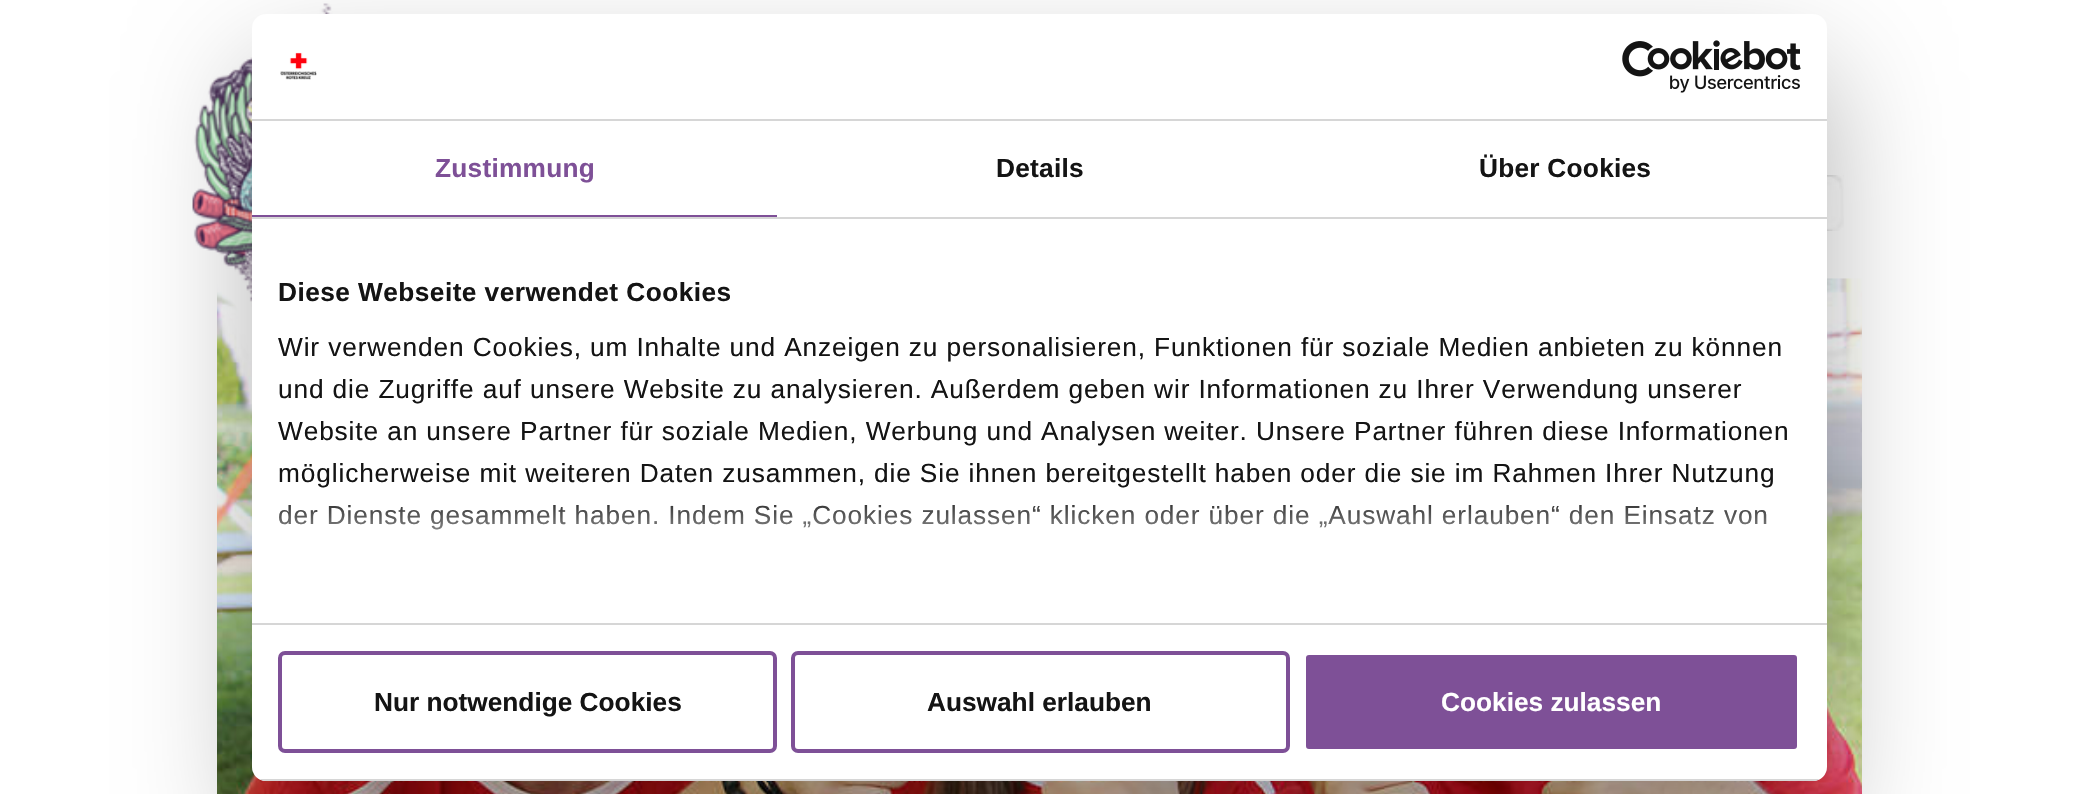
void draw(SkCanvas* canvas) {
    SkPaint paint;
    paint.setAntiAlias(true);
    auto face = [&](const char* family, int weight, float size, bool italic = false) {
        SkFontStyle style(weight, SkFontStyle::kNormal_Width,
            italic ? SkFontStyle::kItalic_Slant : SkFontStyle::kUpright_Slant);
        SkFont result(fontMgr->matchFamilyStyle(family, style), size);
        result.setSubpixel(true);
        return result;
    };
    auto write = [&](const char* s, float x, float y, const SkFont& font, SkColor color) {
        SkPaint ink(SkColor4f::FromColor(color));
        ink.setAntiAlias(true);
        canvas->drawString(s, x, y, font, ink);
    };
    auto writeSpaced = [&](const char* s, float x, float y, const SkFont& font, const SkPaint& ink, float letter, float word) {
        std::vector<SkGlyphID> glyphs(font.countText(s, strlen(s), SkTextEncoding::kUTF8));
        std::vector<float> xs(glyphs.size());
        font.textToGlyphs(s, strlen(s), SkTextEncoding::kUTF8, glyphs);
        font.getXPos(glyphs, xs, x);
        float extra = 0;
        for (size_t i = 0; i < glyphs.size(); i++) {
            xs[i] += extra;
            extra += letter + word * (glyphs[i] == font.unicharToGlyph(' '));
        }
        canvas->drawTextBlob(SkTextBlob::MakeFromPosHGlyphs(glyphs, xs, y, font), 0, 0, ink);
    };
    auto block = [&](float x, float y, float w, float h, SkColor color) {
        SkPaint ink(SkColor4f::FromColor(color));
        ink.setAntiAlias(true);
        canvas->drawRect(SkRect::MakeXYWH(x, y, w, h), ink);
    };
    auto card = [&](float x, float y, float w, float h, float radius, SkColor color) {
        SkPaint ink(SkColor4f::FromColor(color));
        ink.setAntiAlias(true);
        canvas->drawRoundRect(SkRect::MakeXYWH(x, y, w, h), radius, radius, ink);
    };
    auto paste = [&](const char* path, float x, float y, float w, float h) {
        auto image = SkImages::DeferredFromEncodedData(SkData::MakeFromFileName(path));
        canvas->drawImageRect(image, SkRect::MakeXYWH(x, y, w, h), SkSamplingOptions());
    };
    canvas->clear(SK_ColorWHITE);
    paste("pic3.png", 217, 278, 1645, 516);
    paste("pic1.png", 192, 3, 275, 385);
    paste("pic2.png", 1827, 175, 17, 56);
    paint.setColor(SkColorSetARGB(77, 0, 0, 0));
    paint.setMaskFilter(SkMaskFilter::MakeBlur(kNormal_SkBlurStyle, 59.5f));
    canvas->drawRoundRect(SkRect::MakeXYWH(252, 70, 1575, 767), 14, 14, paint);
    paint.setMaskFilter(nullptr);
    card(252, 14, 1575, 767, 14, SK_ColorWHITE);
    block(252, 119, 1575, 2, SkColorSetRGB(214, 214, 214));
    paste("pic4.png", 280, 52, 37, 28);
    paste("pic5.png", 1622, 40, 179, 53);
    block(252, 217, 1575, 2, SkColorSetRGB(214, 214, 214));
    block(252, 215, 525, 2, SkColorSetRGB(126, 80, 151));
    auto kFont1 = face("Liberation Sans", 700, 26.25f);
    paint.setColor(SkColorSetRGB(126, 80, 151));
    writeSpaced("Zustimmung", 435, 177, kFont1, paint, 0.25f, 0);
    paint.setColor(SkColorSetRGB(20, 20, 20));
    writeSpaced("Details", 996, 177, kFont1, paint, 0.25f, 0);
    writeSpaced("Über Cookies", 1479, 177, kFont1, paint, 0.25f, 0);
    block(252, 623, 1575, 2, SkColorSetRGB(214, 214, 214));
    writeSpaced("Diese Webseite verwendet Cookies", 278, 301, kFont1, paint, 0.45f, 0);
    auto kFont2 = face("Liberation Sans", 400, 26.25f);
    writeSpaced("Wir verwenden Cookies, um Inhalte und Anzeigen zu personalisieren, Funktionen für soziale Medien anbieten zu können", 278, 356, kFont2, paint, 0.88f, 0);
    writeSpaced("und die Zugriffe auf unsere Website zu analysieren. Außerdem geben wir Informationen zu Ihrer Verwendung unserer", 278, 398, kFont2, paint, 0.88f, 0);
    writeSpaced("Website an unsere Partner für soziale Medien, Werbung und Analysen weiter. Unsere Partner führen diese Informationen", 278, 440, kFont2, paint, 0.88f, 0);
    writeSpaced("möglicherweise mit weiteren Daten zusammen, die Sie ihnen bereitgestellt haben oder die sie im Rahmen Ihrer Nutzung", 278, 482, kFont2, paint, 0.88f, 0);
    writeSpaced("der Dienste gesammelt haben. Indem Sie „Cookies zulassen“ klicken oder über die „Auswahl erlauben“ den Einsatz von", 278, 524, kFont2, paint, 0.88f, 0);
    {
        const SkColor colors[] = {SK_ColorWHITE, SkColorSetARGB(204, 255, 255, 255), SkColorSetARGB(0, 255, 255, 255)};
        const float stops[] = {0, 0.5f, 1};
        const SkPoint ends[] = {{1028, 623}, {1028, 492}};
        paint.setShader(SkGradientShader::MakeLinear(ends, colors, stops, 3, SkTileMode::kClamp));
        paint.setAlpha(255);
    }
    canvas->drawRect(SkRect::MakeXYWH(279, 505, 1487, 25), paint);
    canvas->save();
    canvas->clipPath(SkPathBuilder().moveTo(266, 14).lineTo(1813, 14).cubicTo(1820.5f, 14, 1827, 20.5f, 1827, 28).lineTo(1827, 767).cubicTo(1827, 774.5f, 1820.5f, 781, 1813, 781).lineTo(266, 781).cubicTo(258.5f, 781, 252, 774.5f, 252, 767).lineTo(252, 28).cubicTo(252, 20.5f, 258.5f, 14, 266, 14).close().detach(), true);
    block(252, 779, 1575, 2, SkColorSetRGB(214, 214, 214));
    canvas->restore();
    paint.setStyle(SkPaint::kStroke_Style);
    paint.setStrokeWidth(4);
    paint.setShader(nullptr);
    paint.setColor(SkColorSetRGB(126, 80, 151));
    canvas->drawRoundRect(SkRect::MakeXYWH(280, 653, 495, 98), 5, 5, paint);
    write("Nur notwendige Cookies", 374, 711, kFont1, SkColorSetRGB(20, 20, 20));
    canvas->drawRoundRect(SkRect::MakeXYWH(793, 653, 495, 98), 5, 5, paint);
    write("Auswahl erlauben", 927, 711, kFont1, SkColorSetRGB(20, 20, 20));
    paint.setStyle(SkPaint::kFill_Style);
    canvas->drawRoundRect(SkRect::MakeXYWH(1304, 653, 495, 98), 5, 5, paint);
    paint.setStyle(SkPaint::kStroke_Style);
    paint.setColor(SK_ColorWHITE);
    canvas->drawRoundRect(SkRect::MakeXYWH(1304, 653, 495, 98), 5, 5, paint);
    write("Cookies zulassen", 1441, 711, kFont1, SK_ColorWHITE);
}
